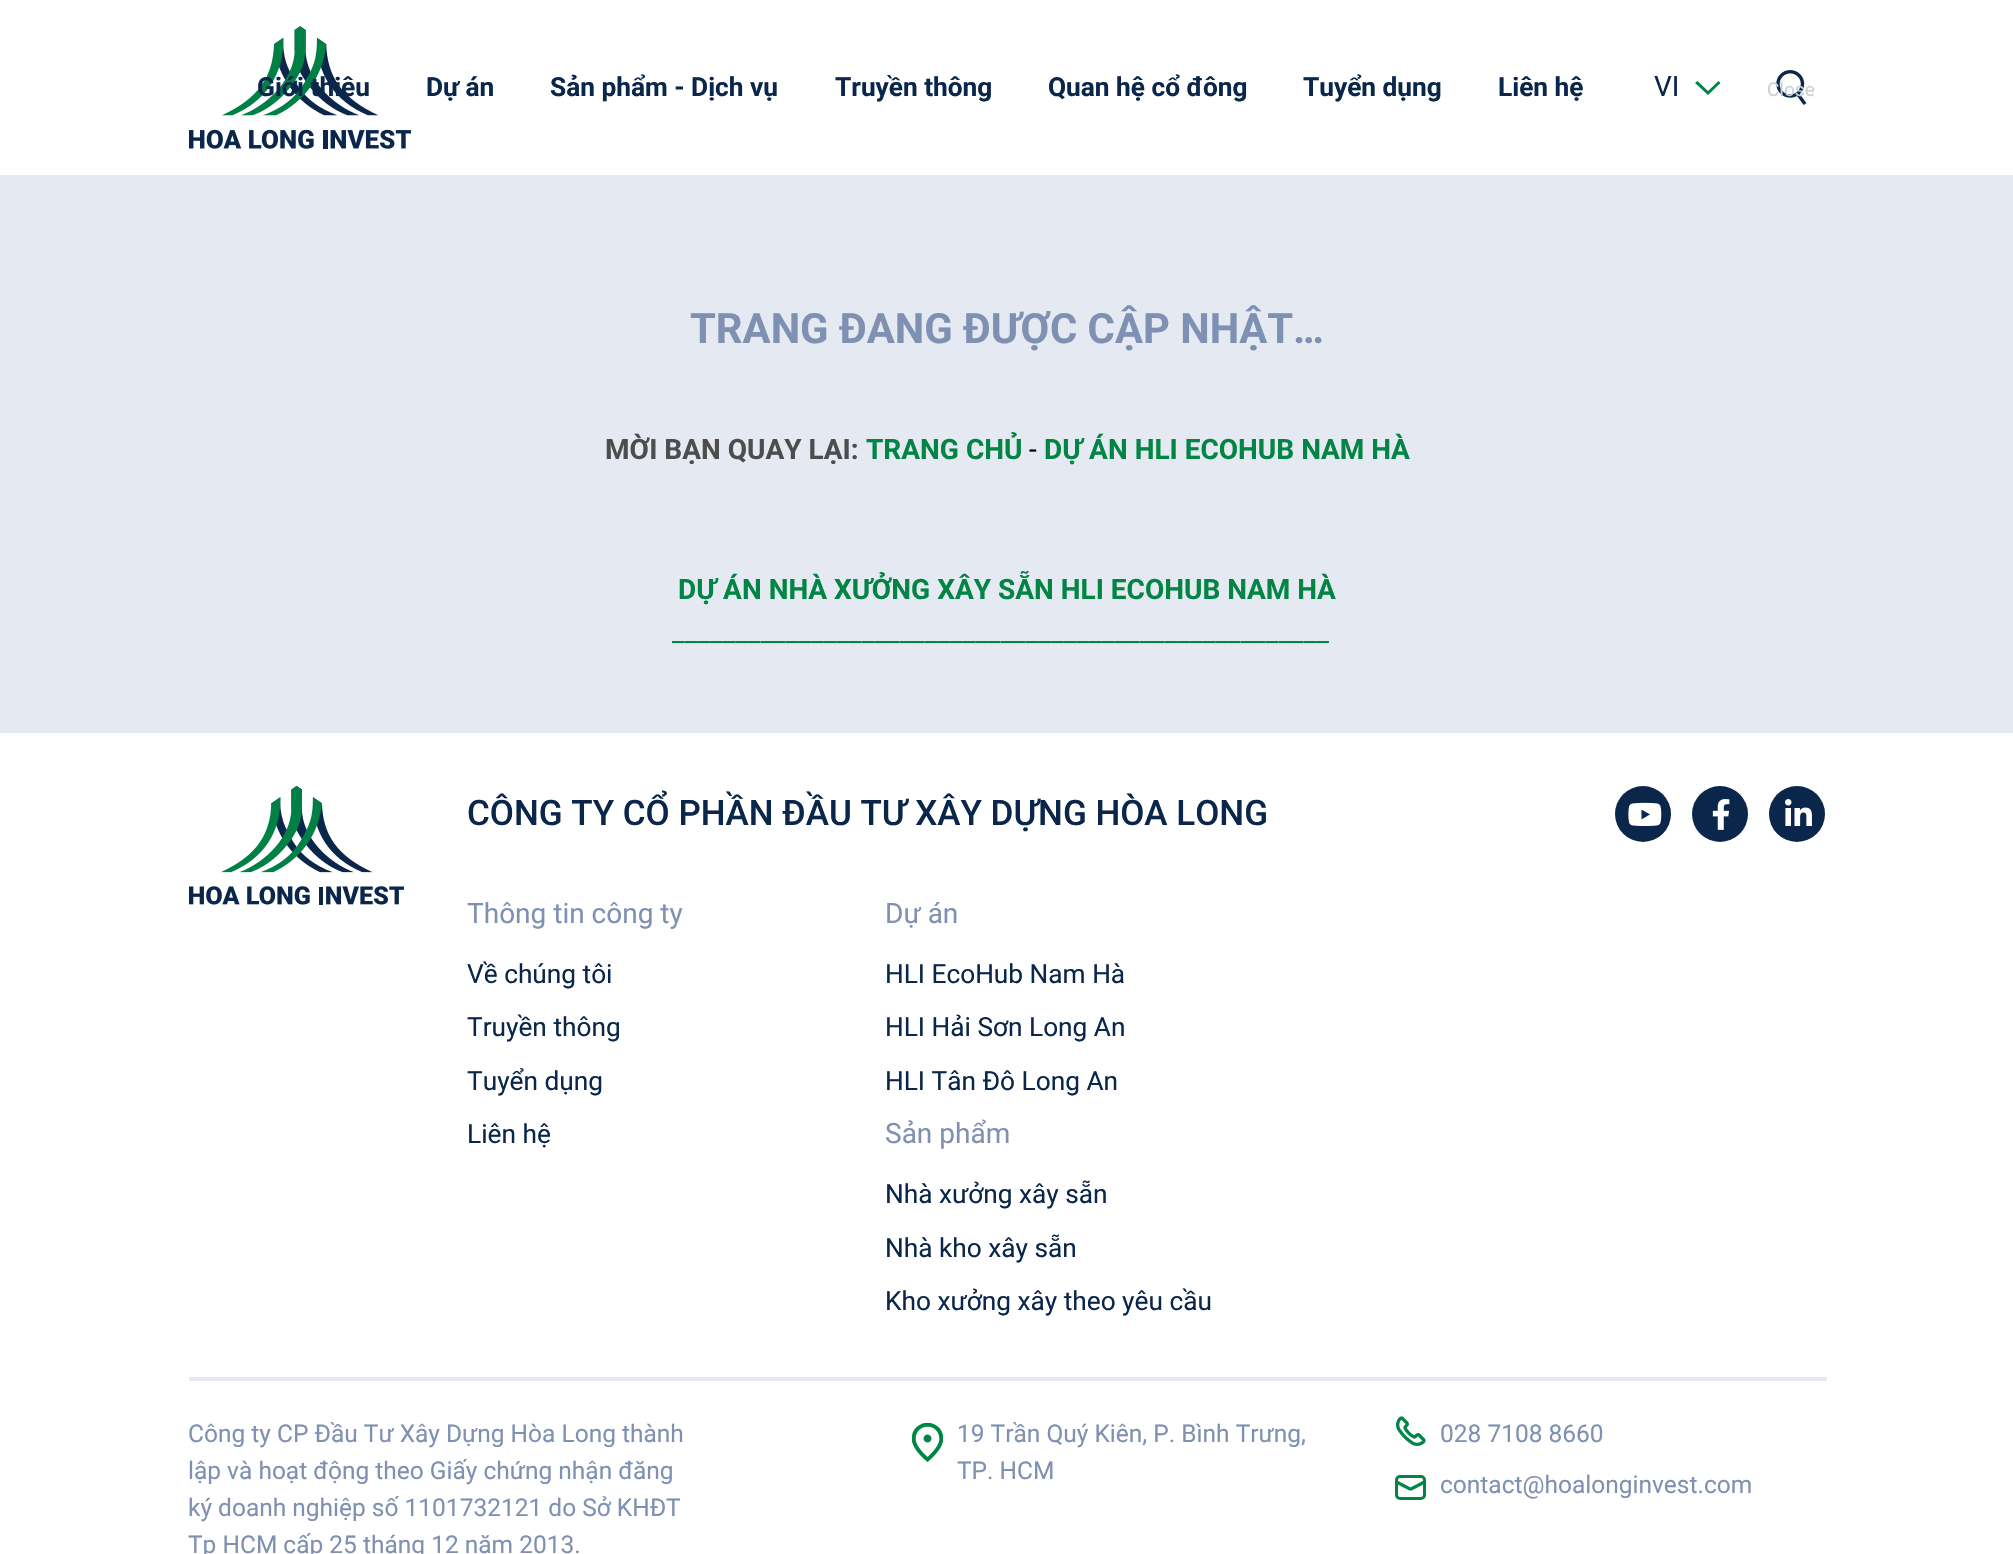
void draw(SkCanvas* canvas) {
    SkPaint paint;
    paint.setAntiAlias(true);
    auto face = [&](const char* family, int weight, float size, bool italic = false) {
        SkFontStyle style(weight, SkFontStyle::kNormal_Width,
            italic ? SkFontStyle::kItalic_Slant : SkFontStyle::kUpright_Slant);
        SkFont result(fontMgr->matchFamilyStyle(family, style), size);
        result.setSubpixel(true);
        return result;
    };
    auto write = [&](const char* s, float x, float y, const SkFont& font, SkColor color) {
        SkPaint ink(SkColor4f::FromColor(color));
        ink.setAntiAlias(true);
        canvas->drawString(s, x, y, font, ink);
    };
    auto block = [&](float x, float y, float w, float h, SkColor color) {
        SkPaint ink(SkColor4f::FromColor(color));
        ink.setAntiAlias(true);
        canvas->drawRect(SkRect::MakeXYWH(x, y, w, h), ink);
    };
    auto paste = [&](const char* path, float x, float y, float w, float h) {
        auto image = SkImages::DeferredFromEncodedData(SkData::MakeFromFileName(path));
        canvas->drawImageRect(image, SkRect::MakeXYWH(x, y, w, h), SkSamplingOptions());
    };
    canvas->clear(SK_ColorWHITE);
    paste("pic1.png", 189, 26, 222, 123);
    auto kFont1 = face("Roboto", 700, 26.25f);
    write("Giới thiệu", 257, 96, kFont1, SkColorSetRGB(10, 39, 75));
    write("Dự án", 426, 96, kFont1, SkColorSetRGB(10, 39, 75));
    write("Sản phẩm - Dịch vụ", 550, 96, kFont1, SkColorSetRGB(10, 39, 75));
    write("Truyền thông", 835, 96, kFont1, SkColorSetRGB(10, 39, 75));
    write("Quan hệ cổ đông", 1048, 96, kFont1, SkColorSetRGB(10, 39, 75));
    write("Tuyển dụng", 1303, 96, kFont1, SkColorSetRGB(10, 39, 75));
    write("Liên hệ", 1498, 96, kFont1, SkColorSetRGB(10, 39, 75));
    auto kFont2 = face("Roboto", 400, 28);
    write("VI", 1654, 96, kFont2, SkColorSetRGB(10, 39, 75));
    paint.setColor(SkColorSetRGB(1, 133, 69));
    canvas->drawPath(SkPathBuilder().moveTo(1695, 83).lineTo(1697.5f, 81).lineTo(1708, 91).lineTo(1718.5f, 81).lineTo(1720.5f, 83).lineTo(1708, 95).close().detach(), paint);
    paste("pic2.png", 1776, 70, 31, 35);
    auto kFont3 = face("Roboto", 400, 19);
    write("Close", 1767, 96, kFont3, SkColorSetRGB(202, 208, 216));
    block(0, 175, 2013, 558, SkColorSetRGB(229, 233, 242));
    auto kFont4 = face("Roboto", 700, 41.75f);
    write("TRANG ĐANG ĐƯỢC CẬP NHẬT…", 690, 343, kFont4, SkColorSetRGB(127, 145, 178));
    auto kFont5 = face("Roboto", 700, 28);
    write("MỜI BẠN QUAY LẠI:", 605, 459, kFont5, SkColorSetRGB(77, 77, 77));
    write("TRANG CHỦ", 866, 459, kFont5, SkColorSetRGB(1, 132, 68));
    write("-", 1029, 459, kFont2, SK_ColorBLACK);
    write("DỰ ÁN HLI ECOHUB NAM HÀ", 1044, 459, kFont5, SkColorSetRGB(1, 132, 68));
    write("DỰ ÁN NHÀ XƯỞNG XÂY SẴN HLI ECOHUB NAM HÀ", 678, 599, kFont5, SkColorSetRGB(1, 132, 68));
    write("____________________________________________________", 672, 641, kFont2, SkColorSetRGB(1, 132, 68));
    paste("pic3.png", 189, 786, 215, 119);
    auto kFont6 = face("Roboto", 500, 35);
    write("CÔNG TY CỔ PHẦN ĐẦU TƯ XÂY DỰNG HÒA LONG", 467, 825, kFont6, SkColorSetRGB(10, 39, 75));
    write("Thông tin công ty", 467, 923, kFont2, SkColorSetRGB(127, 145, 178));
    auto kFont7 = face("Roboto", 400, 26.25f);
    write("Về chúng tôi", 467, 983, kFont7, SkColorSetRGB(10, 39, 75));
    write("Truyền thông", 467, 1036, kFont7, SkColorSetRGB(10, 39, 75));
    write("Tuyển dụng", 467, 1090, kFont7, SkColorSetRGB(10, 39, 75));
    write("Liên hệ", 467, 1143, kFont7, SkColorSetRGB(10, 39, 75));
    write("Dự án", 885, 923, kFont2, SkColorSetRGB(127, 145, 178));
    write("HLI EcoHub Nam Hà", 885, 983, kFont7, SkColorSetRGB(10, 39, 75));
    write("HLI Hải Sơn Long An", 885, 1036, kFont7, SkColorSetRGB(10, 39, 75));
    write("HLI Tân Đô Long An", 885, 1090, kFont7, SkColorSetRGB(10, 39, 75));
    write("Sản phẩm", 885, 1143, kFont2, SkColorSetRGB(127, 145, 178));
    write("Nhà xưởng xây sẵn", 885, 1203, kFont7, SkColorSetRGB(10, 39, 75));
    write("Nhà kho xây sẵn", 885, 1257, kFont7, SkColorSetRGB(10, 39, 75));
    write("Kho xưởng xây theo yêu cầu", 885, 1310, kFont7, SkColorSetRGB(10, 39, 75));
    paint.setColor(SkColorSetRGB(10, 39, 75));
    canvas->drawCircle(1643, 814, 28, paint);
    paste("pic4.png", 1628, 802, 34, 24);
    canvas->drawCircle(1720, 814, 28, paint);
    paste("pic5.png", 1712, 799, 18, 31);
    canvas->drawCircle(1797, 814, 28, paint);
    paste("pic6.png", 1785, 799, 27, 27);
    block(189, 1377, 1638, 4, SkColorSetRGB(229, 233, 242));
    auto kFont8 = face("Roboto", 400, 24.5f);
    write("Công ty CP Đầu Tư Xây Dựng Hòa Long thành", 188, 1442, kFont8, SkColorSetRGB(127, 145, 178));
    write("lập và hoạt động theo Giấy chứng nhận đăng", 188, 1479, kFont8, SkColorSetRGB(127, 145, 178));
    write("ký doanh nghiệp số 1101732121 do Sở KHĐT", 188, 1516, kFont8, SkColorSetRGB(127, 145, 178));
    write("Tp HCM cấp 25 tháng 12 năm 2013.", 188, 1553, kFont8, SkColorSetRGB(127, 145, 178));
    paste("pic7.png", 912, 1423, 31, 39);
    write("19 Trần Quý Kiên, P. Bình Trưng,", 957, 1442, kFont8, SkColorSetRGB(127, 145, 178));
    write("TP. HCM", 957, 1479, kFont8, SkColorSetRGB(127, 145, 178));
    paste("pic8.png", 1396, 1416, 30, 30);
    write("028 7108 8660", 1440, 1442, kFont8, SkColorSetRGB(127, 145, 178));
    paint.setStyle(SkPaint::kStroke_Style);
    paint.setStrokeWidth(3);
    paint.setColor(SkColorSetRGB(1, 133, 69));
    canvas->drawRoundRect(SkRect::MakeXYWH(1396.5f, 1476.5f, 28, 22), 3.5f, 3.5f, paint);
    paint.setStrokeWidth(3.1f);
    canvas->drawPath(SkPathBuilder().moveTo(1396.5f, 1482).lineTo(1409, 1488.5f).cubicTo(1410, 1489, 1411, 1489, 1412, 1488.5f).lineTo(1424.5f, 1482).detach(), paint);
    write("contact@hoalonginvest.com", 1440, 1493, kFont8, SkColorSetRGB(127, 145, 178));
}
